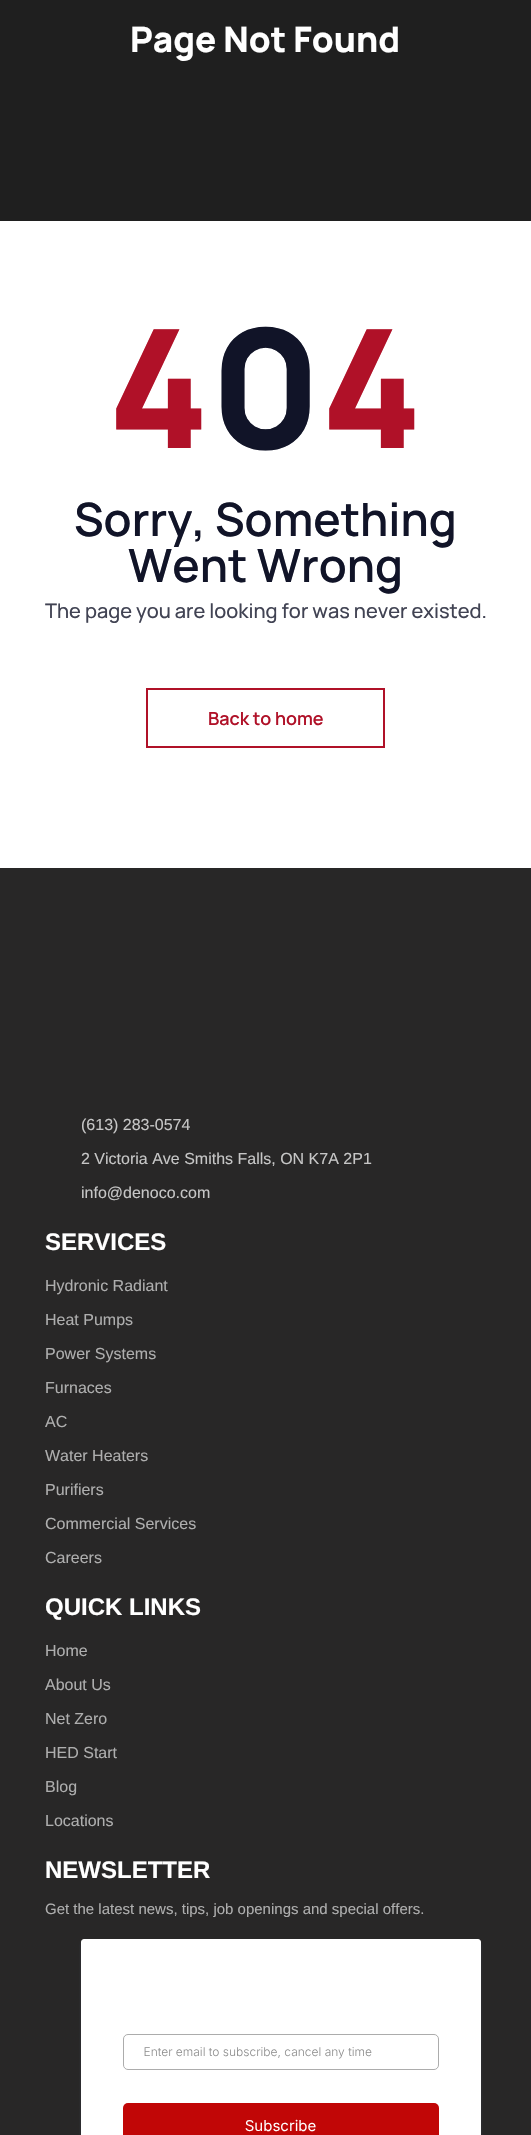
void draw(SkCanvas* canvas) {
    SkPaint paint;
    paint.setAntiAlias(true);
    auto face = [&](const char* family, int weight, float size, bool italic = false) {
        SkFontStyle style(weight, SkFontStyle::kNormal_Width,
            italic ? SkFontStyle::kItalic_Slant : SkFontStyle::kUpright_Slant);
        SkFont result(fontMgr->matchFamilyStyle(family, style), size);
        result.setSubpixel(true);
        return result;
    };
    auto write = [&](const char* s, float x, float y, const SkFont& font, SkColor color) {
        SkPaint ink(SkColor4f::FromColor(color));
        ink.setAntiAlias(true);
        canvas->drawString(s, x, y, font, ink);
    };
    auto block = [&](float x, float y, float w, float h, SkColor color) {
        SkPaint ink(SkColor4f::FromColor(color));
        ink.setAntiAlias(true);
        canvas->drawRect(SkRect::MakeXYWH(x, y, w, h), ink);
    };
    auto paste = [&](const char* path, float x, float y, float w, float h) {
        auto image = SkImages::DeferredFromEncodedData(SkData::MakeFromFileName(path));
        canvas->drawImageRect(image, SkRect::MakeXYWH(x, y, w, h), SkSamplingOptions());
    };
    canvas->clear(SK_ColorWHITE);
    block(0, 0, 531, 221, SkColorSetRGB(31, 31, 31));
    auto kFont1 = face("Manrope", 800, 35);
    write("Page Not Found", 130, 52, kFont1, SK_ColorWHITE);
    auto kFont2 = face("Manrope", 800, 165);
    write("4", 108, 448, kFont2, SkColorSetRGB(176, 17, 40));
    write("0", 210, 448, kFont2, SkColorSetRGB(17, 20, 40));
    write("4", 321, 448, kFont2, SkColorSetRGB(176, 17, 40));
    auto kFont3 = face("Manrope", 600, 46);
    write("Sorry, Something", 74, 536, kFont3, SkColorSetRGB(17, 20, 40));
    write("Went Wrong", 128, 582, kFont3, SkColorSetRGB(17, 20, 40));
    auto kFont4 = face("Manrope", 500, 20);
    write("The page you are looking for was never existed.", 45, 618, kFont4, SkColorSetRGB(65, 67, 83));
    paint.setStyle(SkPaint::kStroke_Style);
    paint.setStrokeWidth(2);
    paint.setColor(SkColorSetRGB(176, 17, 40));
    canvas->drawRect(SkRect::MakeXYWH(147, 689, 237, 58), paint);
    auto kFont5 = face("Manrope", 600, 18);
    write("Back to home", 208, 725, kFont5, SkColorSetRGB(176, 17, 40));
    block(0, 868, 531, 1267, SkColorSetRGB(40, 39, 39));
    auto kFont6 = face("Liberation Sans", 400, 16);
    write("(613) 283-0574", 81, 1130, kFont6, SkColorSetRGB(198, 198, 198));
    write("2 Victoria Ave Smiths Falls, ON K7A 2P1", 81, 1164, kFont6, SkColorSetRGB(198, 198, 198));
    write("info@denoco.com", 81, 1198, kFont6, SkColorSetRGB(198, 198, 198));
    auto kFont7 = face("Liberation Sans", 700, 24);
    write("SERVICES", 45, 1250, kFont7, SK_ColorWHITE);
    write("Hydronic Radiant", 45, 1291, kFont6, SkColorSetRGB(174, 174, 174));
    write("Heat Pumps", 45, 1325, kFont6, SkColorSetRGB(174, 174, 174));
    write("Power Systems", 45, 1359, kFont6, SkColorSetRGB(174, 174, 174));
    write("Furnaces", 45, 1393, kFont6, SkColorSetRGB(174, 174, 174));
    write("AC", 45, 1427, kFont6, SkColorSetRGB(174, 174, 174));
    write("Water Heaters", 45, 1461, kFont6, SkColorSetRGB(174, 174, 174));
    write("Purifiers", 45, 1495, kFont6, SkColorSetRGB(174, 174, 174));
    write("Commercial Services", 45, 1529, kFont6, SkColorSetRGB(174, 174, 174));
    write("Careers", 45, 1563, kFont6, SkColorSetRGB(174, 174, 174));
    write("QUICK LINKS", 45, 1615, kFont7, SK_ColorWHITE);
    write("Home", 45, 1656, kFont6, SkColorSetRGB(174, 174, 174));
    write("About Us", 45, 1690, kFont6, SkColorSetRGB(174, 174, 174));
    write("Net Zero", 45, 1724, kFont6, SkColorSetRGB(174, 174, 174));
    write("HED Start", 45, 1758, kFont6, SkColorSetRGB(174, 174, 174));
    write("Blog", 45, 1792, kFont6, SkColorSetRGB(174, 174, 174));
    write("Locations", 45, 1826, kFont6, SkColorSetRGB(174, 174, 174));
    write("NEWSLETTER", 45, 1878, kFont7, SK_ColorWHITE);
    auto kFont8 = face("Liberation Sans", 400, 15);
    write("Get the latest news, tips, job openings and special offers.", 45, 1914, kFont8, SkColorSetRGB(174, 174, 174));
    paste("pic1.png", 79, 1939, 404, 196);
}
